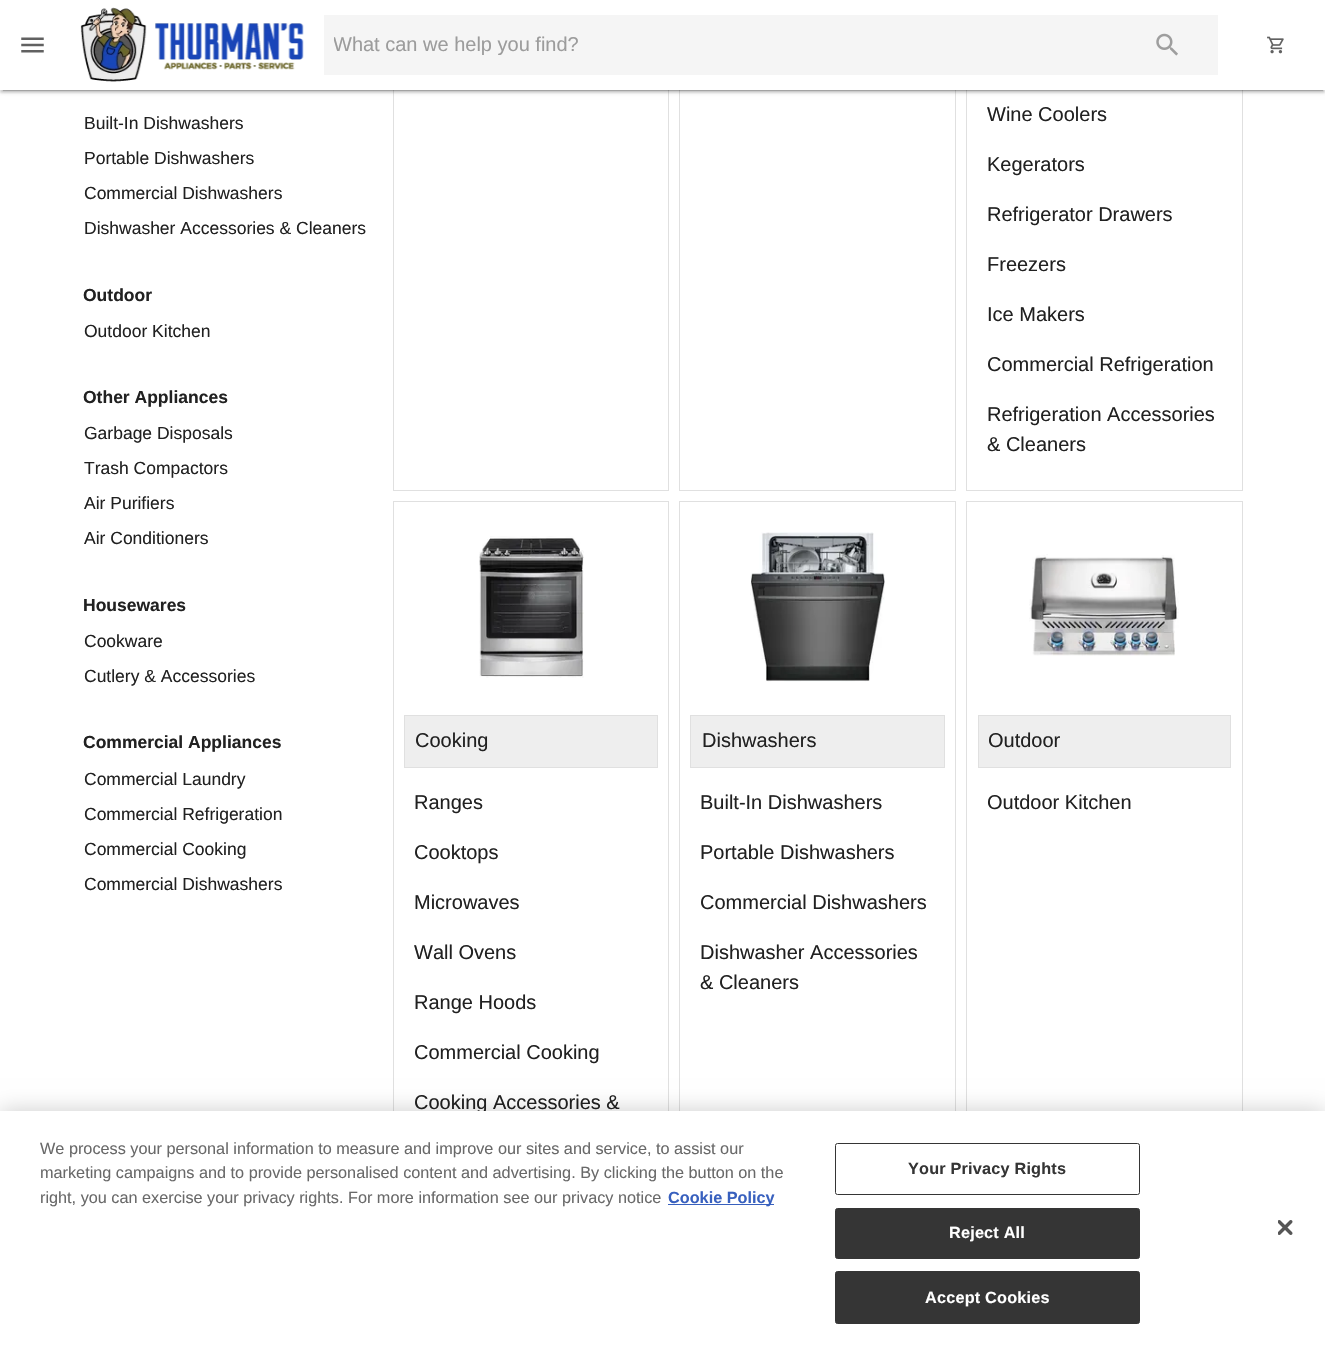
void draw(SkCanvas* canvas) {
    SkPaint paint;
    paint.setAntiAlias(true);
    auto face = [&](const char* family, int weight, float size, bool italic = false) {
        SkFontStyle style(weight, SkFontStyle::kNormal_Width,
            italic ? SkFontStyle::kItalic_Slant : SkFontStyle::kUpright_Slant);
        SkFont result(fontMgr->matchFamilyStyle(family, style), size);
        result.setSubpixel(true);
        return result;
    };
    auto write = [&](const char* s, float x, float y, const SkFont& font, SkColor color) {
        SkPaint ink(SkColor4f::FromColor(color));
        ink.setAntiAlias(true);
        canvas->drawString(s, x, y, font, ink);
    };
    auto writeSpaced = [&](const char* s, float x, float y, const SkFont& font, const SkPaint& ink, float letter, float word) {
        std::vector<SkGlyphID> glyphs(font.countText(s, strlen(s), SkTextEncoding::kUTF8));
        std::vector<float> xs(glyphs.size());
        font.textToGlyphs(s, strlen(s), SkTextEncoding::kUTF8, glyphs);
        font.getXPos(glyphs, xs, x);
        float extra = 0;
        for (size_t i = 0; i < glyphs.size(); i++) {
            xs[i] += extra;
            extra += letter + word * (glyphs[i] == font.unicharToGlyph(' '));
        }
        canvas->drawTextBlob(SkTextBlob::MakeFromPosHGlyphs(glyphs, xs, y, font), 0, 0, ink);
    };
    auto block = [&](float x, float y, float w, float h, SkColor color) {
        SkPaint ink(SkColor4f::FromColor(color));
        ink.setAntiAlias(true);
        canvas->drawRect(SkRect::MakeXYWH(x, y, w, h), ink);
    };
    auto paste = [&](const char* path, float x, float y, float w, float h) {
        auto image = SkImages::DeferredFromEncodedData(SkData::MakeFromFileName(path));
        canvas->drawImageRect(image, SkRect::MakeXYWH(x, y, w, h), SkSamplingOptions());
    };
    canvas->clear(SK_ColorWHITE);
    paint.setStyle(SkPaint::kStroke_Style);
    paint.setStrokeWidth(1);
    paint.setColor(SkColorSetRGB(224, 224, 224));
    canvas->drawRect(SkRect::MakeXYWH(393.5f, -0.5f, 275, 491), paint);
    canvas->drawRect(SkRect::MakeXYWH(679.5f, -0.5f, 276, 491), paint);
    canvas->drawRect(SkRect::MakeXYWH(966.5f, -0.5f, 276, 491), paint);
    paint.setStyle(SkPaint::kFill_Style);
    paint.setColor(SkColorSetARGB(31, 0, 0, 0));
    paint.setMaskFilter(SkMaskFilter::MakeBlur(kNormal_SkBlurStyle, 3));
    canvas->drawRect(SkRect::MakeXYWH(0, 1, 1325, 90), paint);
    paint.setMaskFilter(nullptr);
    paint.setColor(SkColorSetARGB(36, 0, 0, 0));
    paint.setMaskFilter(SkMaskFilter::MakeBlur(kNormal_SkBlurStyle, 1));
    canvas->drawRect(SkRect::MakeXYWH(0, 3, 1325, 90), paint);
    paint.setMaskFilter(nullptr);
    paint.setColor(SkColorSetARGB(51, 0, 0, 0));
    paint.setMaskFilter(SkMaskFilter::MakeBlur(kNormal_SkBlurStyle, 0.5f));
    canvas->drawRect(SkRect::MakeXYWH(3, 6, 1320, 85), paint);
    paint.setMaskFilter(nullptr);
    block(0, 0, 1325, 90, SK_ColorWHITE);
    paste("pic1.png", 21, 37, 23, 16);
    paste("pic2.png", 80, 7, 224, 75);
    block(324, 15, 894, 60, SkColorSetRGB(245, 245, 245));
    canvas->save();
    canvas->clipRect(SkRect::MakeXYWH(334, 33, 784, 22));
    auto kFont1 = face("Liberation Sans", 400, 20);
    write("What can we help you find?", 333, 51, kFont1, SkColorSetRGB(156, 156, 156));
    canvas->restore();
    paste("pic3.png", 1156, 33, 22, 23);
    paste("pic4.png", 1267, 36, 17, 18);
    auto kFont2 = face("Liberation Sans", 400, 17.5f);
    write("Built-In Dishwashers", 84, 129, kFont2, SkColorSetRGB(33, 33, 33));
    write("Portable Dishwashers", 84, 164, kFont2, SkColorSetRGB(33, 33, 33));
    write("Commercial Dishwashers", 84, 199, kFont2, SkColorSetRGB(33, 33, 33));
    write("Dishwasher Accessories & Cleaners", 84, 234, kFont2, SkColorSetRGB(33, 33, 33));
    auto kFont3 = face("Liberation Sans", 700, 17.5f);
    write("Outdoor", 83, 301, kFont3, SkColorSetRGB(33, 33, 33));
    write("Outdoor Kitchen", 84, 337, kFont2, SkColorSetRGB(33, 33, 33));
    write("Other Appliances", 83, 403, kFont3, SkColorSetRGB(33, 33, 33));
    write("Garbage Disposals", 84, 439, kFont2, SkColorSetRGB(33, 33, 33));
    write("Trash Compactors", 84, 474, kFont2, SkColorSetRGB(33, 33, 33));
    write("Air Purifiers", 84, 509, kFont2, SkColorSetRGB(33, 33, 33));
    write("Air Conditioners", 84, 544, kFont2, SkColorSetRGB(33, 33, 33));
    write("Housewares", 83, 611, kFont3, SkColorSetRGB(33, 33, 33));
    write("Cookware", 84, 647, kFont2, SkColorSetRGB(33, 33, 33));
    write("Cutlery & Accessories", 84, 682, kFont2, SkColorSetRGB(33, 33, 33));
    write("Commercial Appliances", 83, 748, kFont3, SkColorSetRGB(33, 33, 33));
    write("Commercial Laundry", 84, 785, kFont2, SkColorSetRGB(33, 33, 33));
    write("Commercial Refrigeration", 84, 820, kFont2, SkColorSetRGB(33, 33, 33));
    write("Commercial Cooking", 84, 855, kFont2, SkColorSetRGB(33, 33, 33));
    write("Commercial Dishwashers", 84, 890, kFont2, SkColorSetRGB(33, 33, 33));
    write("Wine Coolers", 987, 121, kFont1, SkColorSetRGB(33, 33, 33));
    write("Kegerators", 987, 171, kFont1, SkColorSetRGB(33, 33, 33));
    write("Refrigerator Drawers", 987, 221, kFont1, SkColorSetRGB(33, 33, 33));
    write("Freezers", 987, 271, kFont1, SkColorSetRGB(33, 33, 33));
    write("Ice Makers", 987, 321, kFont1, SkColorSetRGB(33, 33, 33));
    write("Commercial Refrigeration", 987, 371, kFont1, SkColorSetRGB(33, 33, 33));
    write("Refrigeration Accessories", 987, 421, kFont1, SkColorSetRGB(33, 33, 33));
    write("& Cleaners", 987, 451, kFont1, SkColorSetRGB(33, 33, 33));
    paint.setStyle(SkPaint::kStroke_Style);
    paint.setColor(SkColorSetRGB(224, 224, 224));
    canvas->drawRect(SkRect::MakeXYWH(393.5f, 501.5f, 275, 677), paint);
    paste("pic5.png", 479, 536, 105, 142);
    paint.setStyle(SkPaint::kFill_Style);
    paint.setColor(SkColorSetRGB(238, 238, 238));
    canvas->drawRect(SkRect::MakeXYWH(404.5f, 715.5f, 253, 52), paint);
    paint.setStyle(SkPaint::kStroke_Style);
    paint.setColor(SkColorSetRGB(224, 224, 224));
    canvas->drawRect(SkRect::MakeXYWH(404.5f, 715.5f, 253, 52), paint);
    write("Cooking", 415, 747, kFont1, SkColorSetRGB(33, 33, 33));
    write("Ranges", 414, 809, kFont1, SkColorSetRGB(33, 33, 33));
    write("Cooktops", 414, 859, kFont1, SkColorSetRGB(33, 33, 33));
    write("Microwaves", 414, 909, kFont1, SkColorSetRGB(33, 33, 33));
    write("Wall Ovens", 414, 959, kFont1, SkColorSetRGB(33, 33, 33));
    write("Range Hoods", 414, 1009, kFont1, SkColorSetRGB(33, 33, 33));
    write("Commercial Cooking", 414, 1059, kFont1, SkColorSetRGB(33, 33, 33));
    write("Cooking Accessories &", 414, 1109, kFont1, SkColorSetRGB(33, 33, 33));
    canvas->drawRect(SkRect::MakeXYWH(679.5f, 501.5f, 276, 677), paint);
    paste("pic6.png", 750, 532, 135, 150);
    paint.setStyle(SkPaint::kFill_Style);
    paint.setColor(SkColorSetRGB(238, 238, 238));
    canvas->drawRect(SkRect::MakeXYWH(690.5f, 715.5f, 254, 52), paint);
    paint.setStyle(SkPaint::kStroke_Style);
    paint.setColor(SkColorSetRGB(224, 224, 224));
    canvas->drawRect(SkRect::MakeXYWH(690.5f, 715.5f, 254, 52), paint);
    write("Dishwashers", 702, 747, kFont1, SkColorSetRGB(33, 33, 33));
    write("Built-In Dishwashers", 700, 809, kFont1, SkColorSetRGB(33, 33, 33));
    write("Portable Dishwashers", 700, 859, kFont1, SkColorSetRGB(33, 33, 33));
    write("Commercial Dishwashers", 700, 909, kFont1, SkColorSetRGB(33, 33, 33));
    write("Dishwasher Accessories", 700, 959, kFont1, SkColorSetRGB(33, 33, 33));
    write("& Cleaners", 700, 989, kFont1, SkColorSetRGB(33, 33, 33));
    canvas->drawRect(SkRect::MakeXYWH(966.5f, 501.5f, 276, 677), paint);
    paste("pic7.png", 1029, 554, 150, 102);
    paint.setStyle(SkPaint::kFill_Style);
    paint.setColor(SkColorSetRGB(238, 238, 238));
    canvas->drawRect(SkRect::MakeXYWH(978.5f, 715.5f, 252, 52), paint);
    paint.setStyle(SkPaint::kStroke_Style);
    paint.setColor(SkColorSetRGB(224, 224, 224));
    canvas->drawRect(SkRect::MakeXYWH(978.5f, 715.5f, 252, 52), paint);
    write("Outdoor", 988, 747, kFont1, SkColorSetRGB(33, 33, 33));
    write("Outdoor Kitchen", 987, 809, kFont1, SkColorSetRGB(33, 33, 33));
    paint.setStyle(SkPaint::kFill_Style);
    paint.setColor(SkColorSetARGB(51, 0, 0, 0));
    paint.setMaskFilter(SkMaskFilter::MakeBlur(kNormal_SkBlurStyle, 11));
    canvas->drawRect(SkRect::MakeXYWH(0, 1111, 1325, 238), paint);
    paint.setMaskFilter(nullptr);
    block(0, 1111, 1325, 237, SK_ColorWHITE);
    auto kFont4 = face("Liberation Sans", 400, 16.25f);
    write("We process your personal information to measure and improve our sites and service, to assist our", 40, 1154, kFont4, SkColorSetRGB(105, 105, 105));
    write("marketing campaigns and to provide personalised content and advertising. By clicking the button on the", 40, 1178, kFont4, SkColorSetRGB(105, 105, 105));
    write("right, you can exercise your privacy rights. For more information see our privacy notice", 40, 1203, kFont4, SkColorSetRGB(105, 105, 105));
    block(668, 1204, 106, 1, SkColorSetRGB(56, 96, 190));
    auto kFont5 = face("Liberation Sans", 700, 16.25f);
    write("Cookie Policy", 668, 1203, kFont5, SkColorSetRGB(56, 96, 190));
    paint.setStyle(SkPaint::kStroke_Style);
    paint.setColor(SkColorSetRGB(53, 53, 53));
    canvas->drawRoundRect(SkRect::MakeXYWH(835.5f, 1143.5f, 304, 51), 2, 2, paint);
    paint.setStyle(SkPaint::kFill_Style);
    writeSpaced("Your Privacy Rights", 908, 1174, kFont5, paint, 0.2f, 0);
    canvas->drawRoundRect(SkRect::MakeXYWH(835.5f, 1208.5f, 304, 50), 2, 2, paint);
    paint.setStyle(SkPaint::kStroke_Style);
    canvas->drawRoundRect(SkRect::MakeXYWH(835.5f, 1208.5f, 304, 50), 2, 2, paint);
    paint.setStyle(SkPaint::kFill_Style);
    paint.setColor(SK_ColorWHITE);
    writeSpaced("Reject All", 949, 1238, kFont5, paint, 0.2f, 0);
    paint.setColor(SkColorSetRGB(53, 53, 53));
    canvas->drawRoundRect(SkRect::MakeXYWH(835.5f, 1271.5f, 304, 52), 2, 2, paint);
    paint.setStyle(SkPaint::kStroke_Style);
    canvas->drawRoundRect(SkRect::MakeXYWH(835.5f, 1271.5f, 304, 52), 2, 2, paint);
    paint.setStyle(SkPaint::kFill_Style);
    paint.setColor(SK_ColorWHITE);
    writeSpaced("Accept Cookies", 925, 1303, kFont5, paint, 0.2f, 0);
    paste("pic8.png", 1278, 1220, 15, 15);
}
